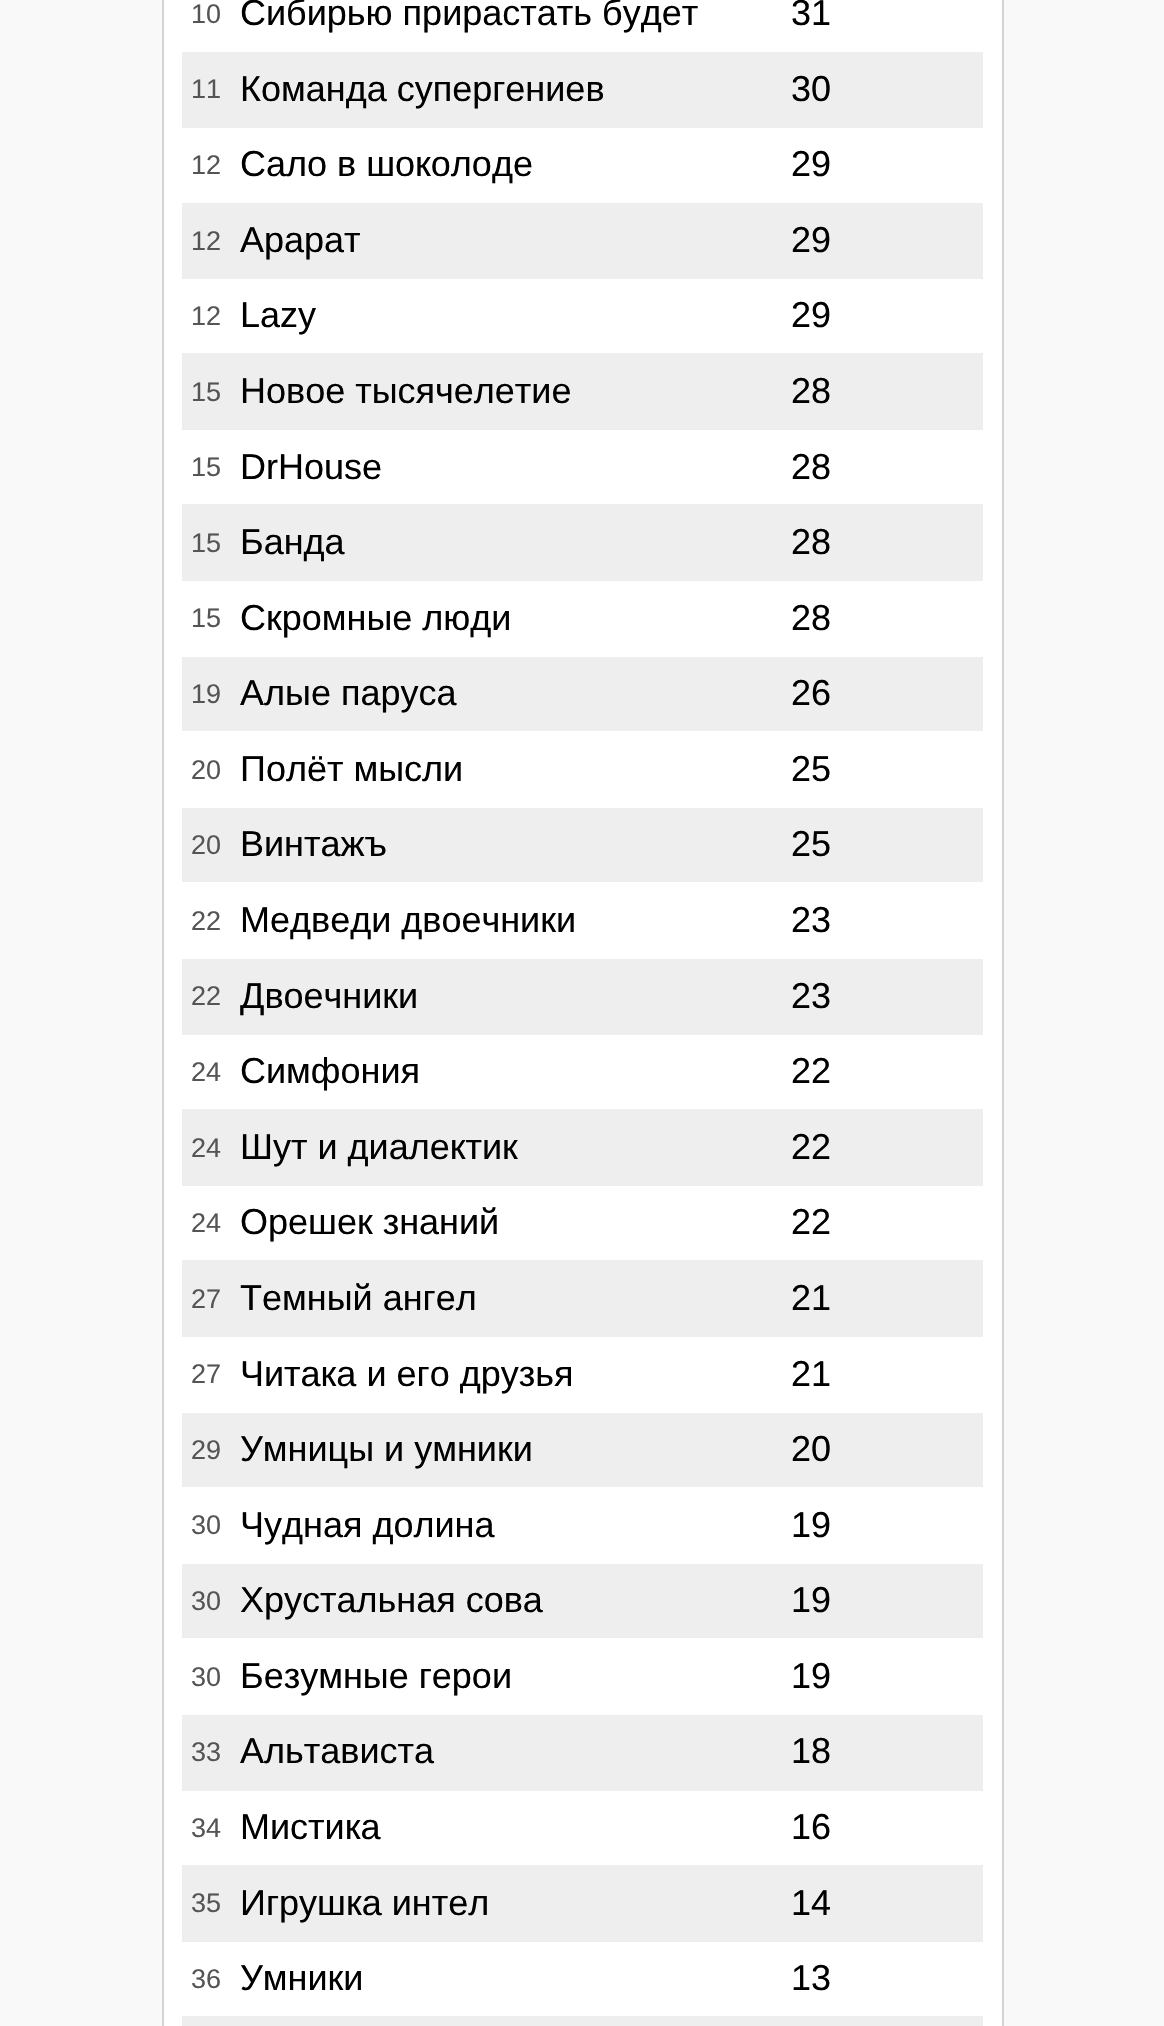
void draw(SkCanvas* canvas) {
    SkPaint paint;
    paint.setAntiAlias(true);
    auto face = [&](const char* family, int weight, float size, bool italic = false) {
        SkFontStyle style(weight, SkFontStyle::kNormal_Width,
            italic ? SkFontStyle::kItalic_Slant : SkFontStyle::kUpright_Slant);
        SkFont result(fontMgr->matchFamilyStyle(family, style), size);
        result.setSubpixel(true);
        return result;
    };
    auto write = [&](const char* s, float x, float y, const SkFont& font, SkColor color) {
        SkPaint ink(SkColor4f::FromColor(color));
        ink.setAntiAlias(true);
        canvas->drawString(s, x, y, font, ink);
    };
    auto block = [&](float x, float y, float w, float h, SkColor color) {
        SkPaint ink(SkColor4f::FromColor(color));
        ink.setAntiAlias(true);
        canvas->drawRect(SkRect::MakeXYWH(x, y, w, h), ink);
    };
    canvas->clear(SkColorSetRGB(249, 249, 249));
    paint.setColor(SK_ColorWHITE);
    canvas->drawRect(SkRect::MakeXYWH(163, -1, 840, 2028), paint);
    paint.setStyle(SkPaint::kStroke_Style);
    paint.setStrokeWidth(2);
    paint.setColor(SkColorSetRGB(211, 211, 211));
    canvas->drawRect(SkRect::MakeXYWH(163, -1, 840, 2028), paint);
    auto kFont1 = face("Liberation Sans", 400, 27);
    write("10", 191, 23, kFont1, SkColorSetRGB(85, 85, 85));
    auto kFont2 = face("Liberation Sans", 400, 36);
    write("Сибирью прирастать будет", 240, 25, kFont2, SK_ColorBLACK);
    write("31", 791, 25, kFont2, SK_ColorBLACK);
    block(182, 52, 801, 76, SkColorSetRGB(238, 238, 238));
    write("11", 191, 98, kFont1, SkColorSetRGB(85, 85, 85));
    write("Команда cупергениев", 240, 101, kFont2, SK_ColorBLACK);
    write("30", 791, 101, kFont2, SK_ColorBLACK);
    write("12", 191, 174, kFont1, SkColorSetRGB(85, 85, 85));
    write("Сало в шоколоде", 240, 176, kFont2, SK_ColorBLACK);
    write("29", 791, 176, kFont2, SK_ColorBLACK);
    block(182, 203, 801, 76, SkColorSetRGB(238, 238, 238));
    write("12", 191, 250, kFont1, SkColorSetRGB(85, 85, 85));
    write("Арарат", 240, 252, kFont2, SK_ColorBLACK);
    write("29", 791, 252, kFont2, SK_ColorBLACK);
    write("12", 191, 325, kFont1, SkColorSetRGB(85, 85, 85));
    write("Lazy", 240, 327, kFont2, SK_ColorBLACK);
    write("29", 791, 327, kFont2, SK_ColorBLACK);
    block(182, 353, 801, 77, SkColorSetRGB(238, 238, 238));
    write("15", 191, 401, kFont1, SkColorSetRGB(85, 85, 85));
    write("Новое тысячелетие", 240, 403, kFont2, SK_ColorBLACK);
    write("28", 791, 403, kFont2, SK_ColorBLACK);
    write("15", 191, 476, kFont1, SkColorSetRGB(85, 85, 85));
    write("DrHouse", 240, 479, kFont2, SK_ColorBLACK);
    write("28", 791, 479, kFont2, SK_ColorBLACK);
    block(182, 504, 801, 77, SkColorSetRGB(238, 238, 238));
    write("15", 191, 552, kFont1, SkColorSetRGB(85, 85, 85));
    write("Банда", 240, 554, kFont2, SK_ColorBLACK);
    write("28", 791, 554, kFont2, SK_ColorBLACK);
    write("15", 191, 627, kFont1, SkColorSetRGB(85, 85, 85));
    write("Скромные люди", 240, 630, kFont2, SK_ColorBLACK);
    write("28", 791, 630, kFont2, SK_ColorBLACK);
    block(182, 657, 801, 74, SkColorSetRGB(238, 238, 238));
    write("19", 191, 703, kFont1, SkColorSetRGB(85, 85, 85));
    write("Алые паруса", 240, 705, kFont2, SK_ColorBLACK);
    write("26", 791, 705, kFont2, SK_ColorBLACK);
    write("20", 191, 779, kFont1, SkColorSetRGB(85, 85, 85));
    write("Полёт мысли", 240, 781, kFont2, SK_ColorBLACK);
    write("25", 791, 781, kFont2, SK_ColorBLACK);
    block(182, 808, 801, 74, SkColorSetRGB(238, 238, 238));
    write("20", 191, 854, kFont1, SkColorSetRGB(85, 85, 85));
    write("Винтажъ", 240, 856, kFont2, SK_ColorBLACK);
    write("25", 791, 856, kFont2, SK_ColorBLACK);
    write("22", 191, 930, kFont1, SkColorSetRGB(85, 85, 85));
    write("Медведи двоечники", 240, 932, kFont2, SK_ColorBLACK);
    write("23", 791, 932, kFont2, SK_ColorBLACK);
    block(182, 959, 801, 76, SkColorSetRGB(238, 238, 238));
    write("22", 191, 1005, kFont1, SkColorSetRGB(85, 85, 85));
    write("Двоечники", 240, 1008, kFont2, SK_ColorBLACK);
    write("23", 791, 1008, kFont2, SK_ColorBLACK);
    write("24", 191, 1081, kFont1, SkColorSetRGB(85, 85, 85));
    write("Симфония", 240, 1083, kFont2, SK_ColorBLACK);
    write("22", 791, 1083, kFont2, SK_ColorBLACK);
    block(182, 1109, 801, 77, SkColorSetRGB(238, 238, 238));
    write("24", 191, 1157, kFont1, SkColorSetRGB(85, 85, 85));
    write("Шут и диалектик", 240, 1159, kFont2, SK_ColorBLACK);
    write("22", 791, 1159, kFont2, SK_ColorBLACK);
    write("24", 191, 1232, kFont1, SkColorSetRGB(85, 85, 85));
    write("Орешек знаний", 240, 1234, kFont2, SK_ColorBLACK);
    write("22", 791, 1234, kFont2, SK_ColorBLACK);
    block(182, 1260, 801, 77, SkColorSetRGB(238, 238, 238));
    write("27", 191, 1308, kFont1, SkColorSetRGB(85, 85, 85));
    write("Темный ангел", 240, 1310, kFont2, SK_ColorBLACK);
    write("21", 791, 1310, kFont2, SK_ColorBLACK);
    write("27", 191, 1383, kFont1, SkColorSetRGB(85, 85, 85));
    write("Читака и его друзья", 240, 1386, kFont2, SK_ColorBLACK);
    write("21", 791, 1386, kFont2, SK_ColorBLACK);
    block(182, 1413, 801, 74, SkColorSetRGB(238, 238, 238));
    write("29", 191, 1459, kFont1, SkColorSetRGB(85, 85, 85));
    write("Умницы и умники", 240, 1461, kFont2, SK_ColorBLACK);
    write("20", 791, 1461, kFont2, SK_ColorBLACK);
    write("30", 191, 1534, kFont1, SkColorSetRGB(85, 85, 85));
    write("Чудная долина", 240, 1537, kFont2, SK_ColorBLACK);
    write("19", 791, 1537, kFont2, SK_ColorBLACK);
    block(182, 1564, 801, 74, SkColorSetRGB(238, 238, 238));
    write("30", 191, 1610, kFont1, SkColorSetRGB(85, 85, 85));
    write("Хрустальная сова", 240, 1612, kFont2, SK_ColorBLACK);
    write("19", 791, 1612, kFont2, SK_ColorBLACK);
    write("30", 191, 1686, kFont1, SkColorSetRGB(85, 85, 85));
    write("Безумные герои", 240, 1688, kFont2, SK_ColorBLACK);
    write("19", 791, 1688, kFont2, SK_ColorBLACK);
    block(182, 1715, 801, 76, SkColorSetRGB(238, 238, 238));
    write("33", 191, 1761, kFont1, SkColorSetRGB(85, 85, 85));
    write("Альтависта", 240, 1763, kFont2, SK_ColorBLACK);
    write("18", 791, 1763, kFont2, SK_ColorBLACK);
    write("34", 191, 1837, kFont1, SkColorSetRGB(85, 85, 85));
    write("Мистика", 240, 1839, kFont2, SK_ColorBLACK);
    write("16", 791, 1839, kFont2, SK_ColorBLACK);
    block(182, 1865, 801, 77, SkColorSetRGB(238, 238, 238));
    write("35", 191, 1912, kFont1, SkColorSetRGB(85, 85, 85));
    write("Игрушка интел", 240, 1915, kFont2, SK_ColorBLACK);
    write("14", 791, 1915, kFont2, SK_ColorBLACK);
    write("36", 191, 1988, kFont1, SkColorSetRGB(85, 85, 85));
    write("Умники", 240, 1990, kFont2, SK_ColorBLACK);
    write("13", 791, 1990, kFont2, SK_ColorBLACK);
    block(182, 2016, 801, 10, SkColorSetRGB(238, 238, 238));
}
